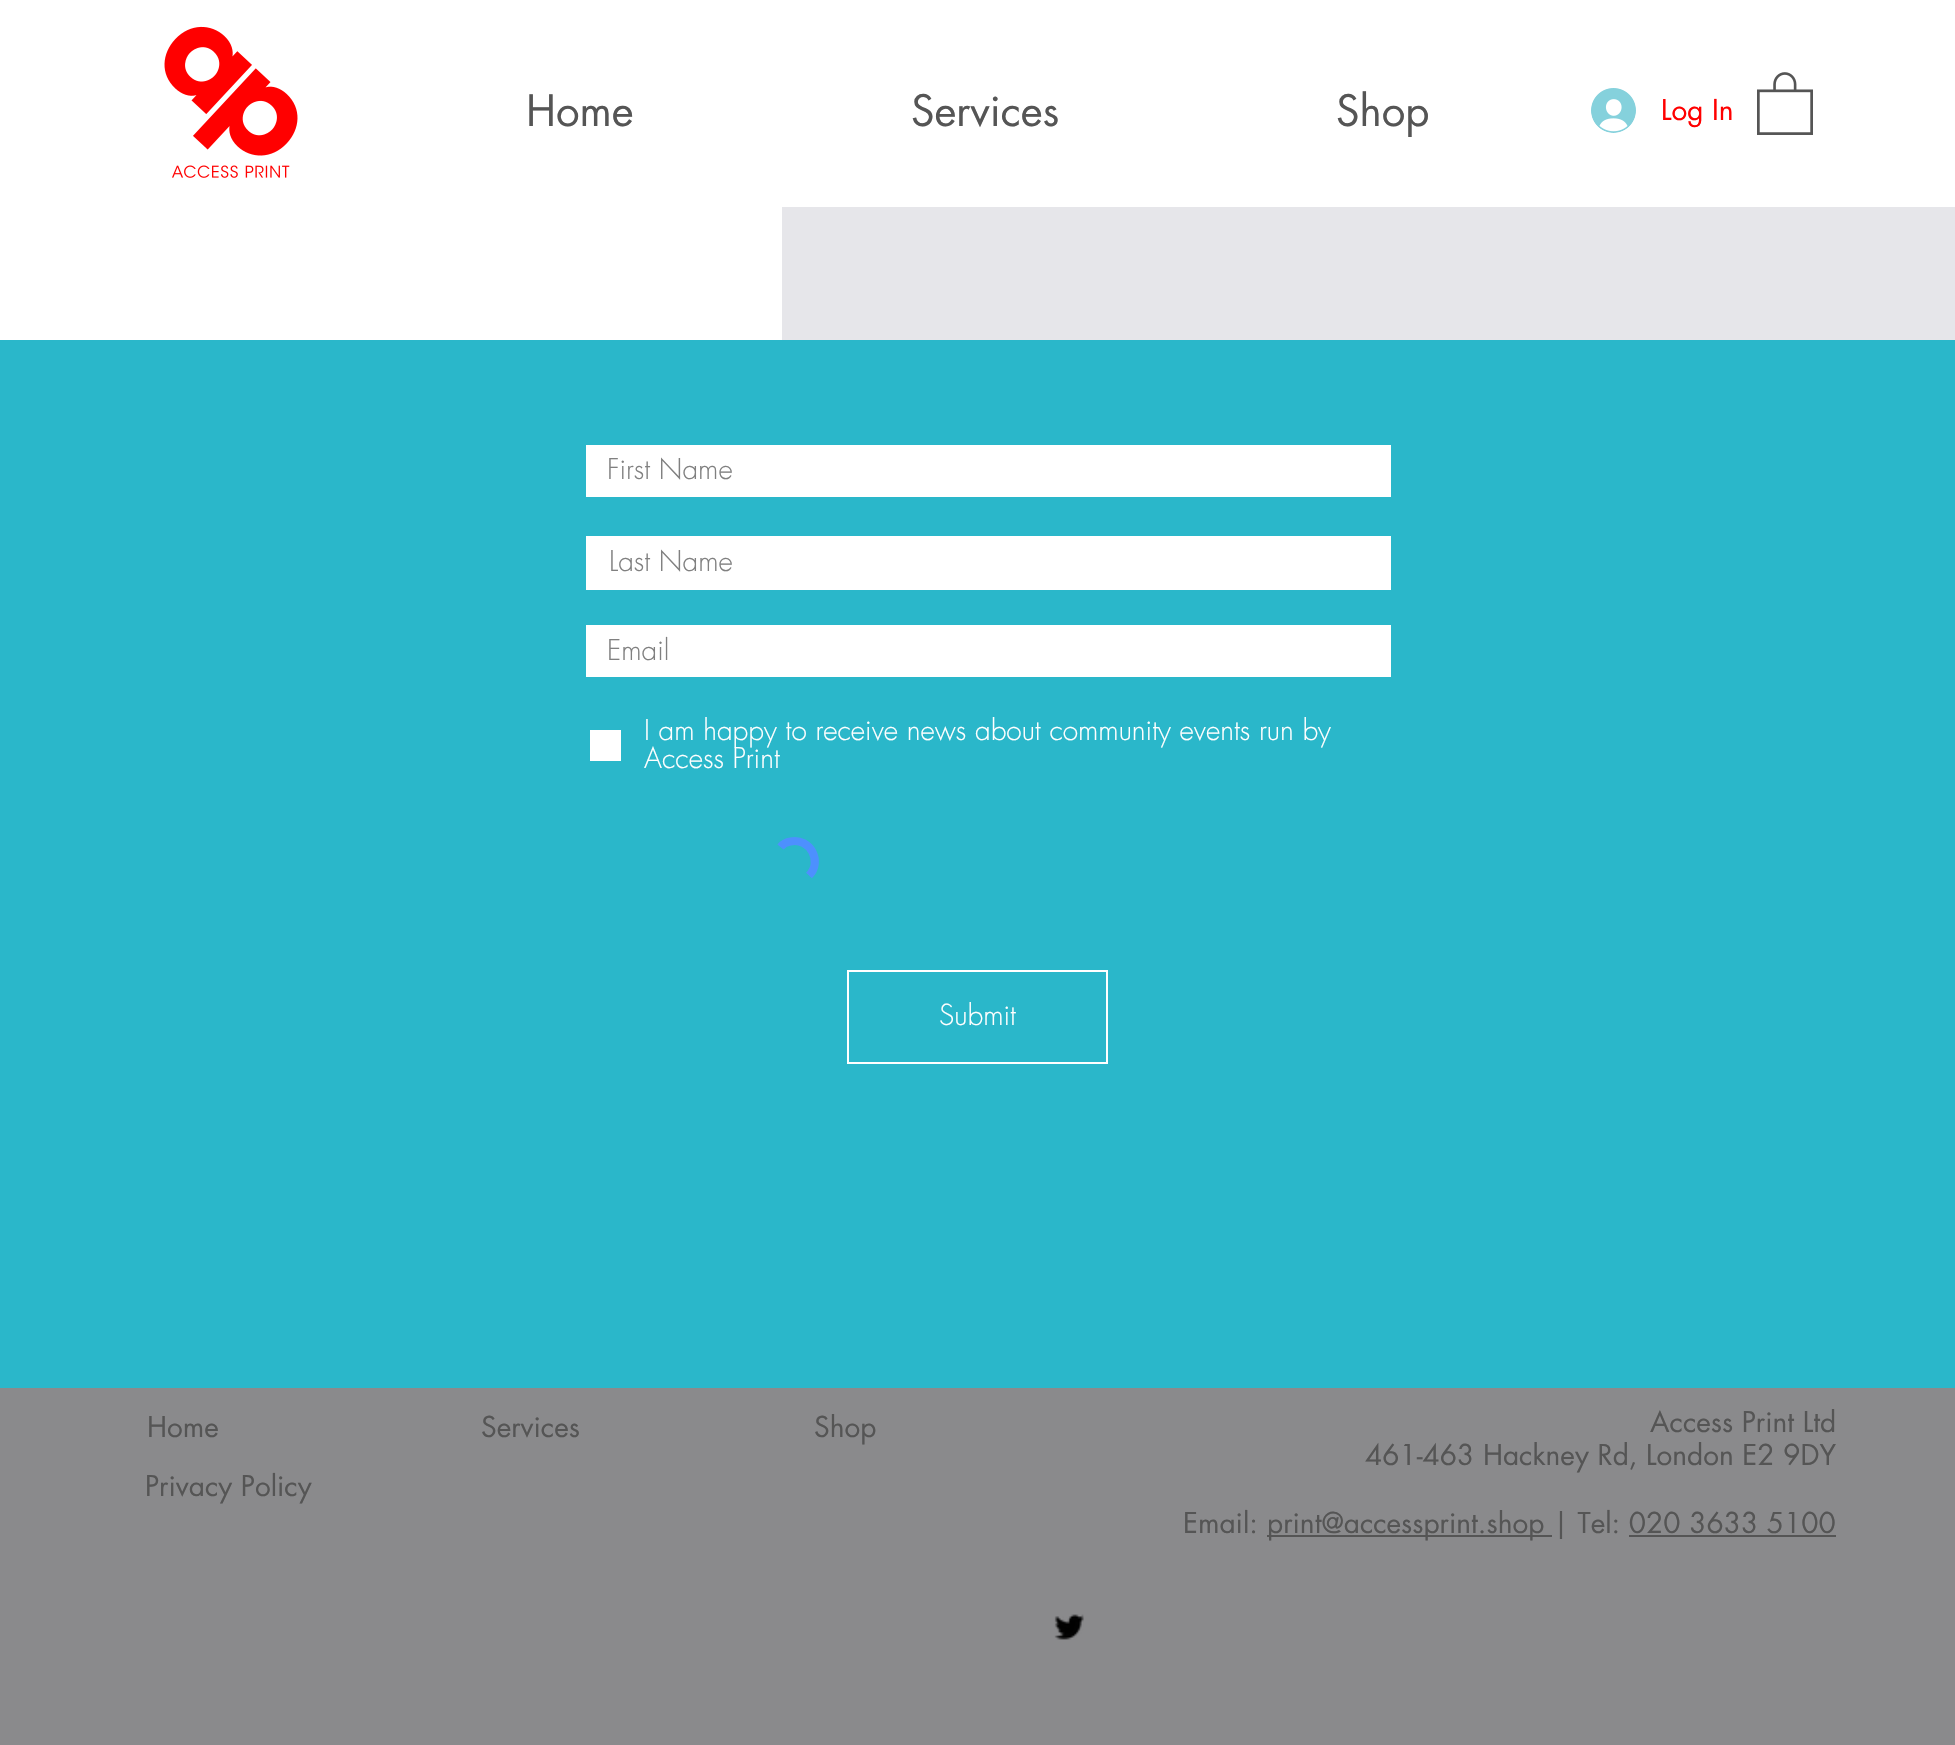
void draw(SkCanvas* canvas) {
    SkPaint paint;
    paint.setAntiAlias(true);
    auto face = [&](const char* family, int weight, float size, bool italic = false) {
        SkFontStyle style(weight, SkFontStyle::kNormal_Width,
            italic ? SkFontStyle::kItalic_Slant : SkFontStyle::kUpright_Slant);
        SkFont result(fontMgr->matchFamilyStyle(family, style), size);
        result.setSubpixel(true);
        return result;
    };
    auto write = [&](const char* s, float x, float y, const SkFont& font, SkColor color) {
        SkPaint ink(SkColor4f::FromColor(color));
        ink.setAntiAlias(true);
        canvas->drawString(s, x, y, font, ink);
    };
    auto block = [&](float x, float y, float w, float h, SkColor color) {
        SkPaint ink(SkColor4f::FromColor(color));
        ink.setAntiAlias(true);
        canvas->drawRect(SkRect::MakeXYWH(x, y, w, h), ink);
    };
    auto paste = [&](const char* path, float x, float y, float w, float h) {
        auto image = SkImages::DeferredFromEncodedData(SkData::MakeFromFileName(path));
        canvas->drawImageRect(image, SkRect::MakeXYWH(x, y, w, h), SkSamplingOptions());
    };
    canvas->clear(SK_ColorWHITE);
    paste("pic1.png", 164, 26, 134, 152);
    auto kFont1 = face("futura", 400, 42);
    write("Home", 526, 126, kFont1, SkColorSetRGB(85, 85, 85));
    write("Services", 911, 126, kFont1, SkColorSetRGB(85, 85, 85));
    write("Shop", 1336, 126, kFont1, SkColorSetRGB(85, 85, 85));
    paste("pic2.png", 1591, 88, 45, 45);
    auto kFont2 = face("futura", 400, 28);
    write("Log In", 1661, 120, kFont2, SkColorSetRGB(255, 0, 0));
    paste("pic3.png", 1757, 72, 56, 63);
    block(782, 207, 1173, 133, SkColorSetRGB(230, 230, 234));
    block(0, 340, 1955, 1048, SkColorSetRGB(42, 183, 202));
    block(586, 445, 805, 52, SK_ColorWHITE);
    auto kFont3 = face("futura", 300, 28);
    write("First Name", 607, 479, kFont3, SkColorSetRGB(128, 128, 128));
    block(586, 536, 805, 54, SK_ColorWHITE);
    write("Last Name", 609, 571, kFont3, SkColorSetRGB(128, 128, 128));
    block(586, 625, 805, 52, SK_ColorWHITE);
    write("Email", 607, 660, kFont3, SkColorSetRGB(128, 128, 128));
    block(590, 730, 31, 31, SK_ColorWHITE);
    write("I am happy to receive news about community events run by", 644, 740, kFont3, SK_ColorWHITE);
    write("Access Print", 644, 768, kFont3, SK_ColorWHITE);
    paint.setStyle(SkPaint::kStroke_Style);
    paint.setStrokeWidth(8.1f);
    paint.setColor(SkColorSetRGB(77, 144, 254));
    canvas->drawPath(SkPathBuilder().moveTo(780.5f, 847).cubicTo(783, 844, 786.5f, 842, 790.5f, 841.5f).cubicTo(810, 837.5f, 823, 861.5f, 809, 875.5f).detach(), paint);
    paint.setStrokeWidth(2);
    paint.setColor(SK_ColorWHITE);
    canvas->drawRect(SkRect::MakeXYWH(848, 971, 259, 92), paint);
    write("Submit", 939, 1025, kFont3, SK_ColorWHITE);
    block(0, 1388, 1955, 357, SkColorSetRGB(138, 138, 140));
    write("Home", 147, 1437, kFont2, SkColorSetRGB(85, 85, 85));
    write("Services", 481, 1437, kFont2, SkColorSetRGB(85, 85, 85));
    write("Shop", 814, 1437, kFont2, SkColorSetRGB(85, 85, 85));
    write("Access Print Ltd", 1650, 1432, kFont2, SkColorSetRGB(85, 85, 85));
    write("461-463 Hackney Rd, London E2 9DY", 1365, 1465, kFont2, SkColorSetRGB(85, 85, 85));
    write("Email:", 1183, 1533, kFont2, SkColorSetRGB(85, 85, 85));
    block(1267, 1535, 285, 2, SkColorSetRGB(85, 85, 85));
    write("print@accessprint.shop | Tel: 020 3633 5100", 1267, 1533, kFont2, SkColorSetRGB(85, 85, 85));
    block(1629, 1535, 207, 2, SkColorSetRGB(85, 85, 85));
    write("Privacy Policy", 145, 1496, kFont2, SkColorSetRGB(85, 85, 85));
    paste("pic4.png", 1054, 1614, 30, 26);
}
